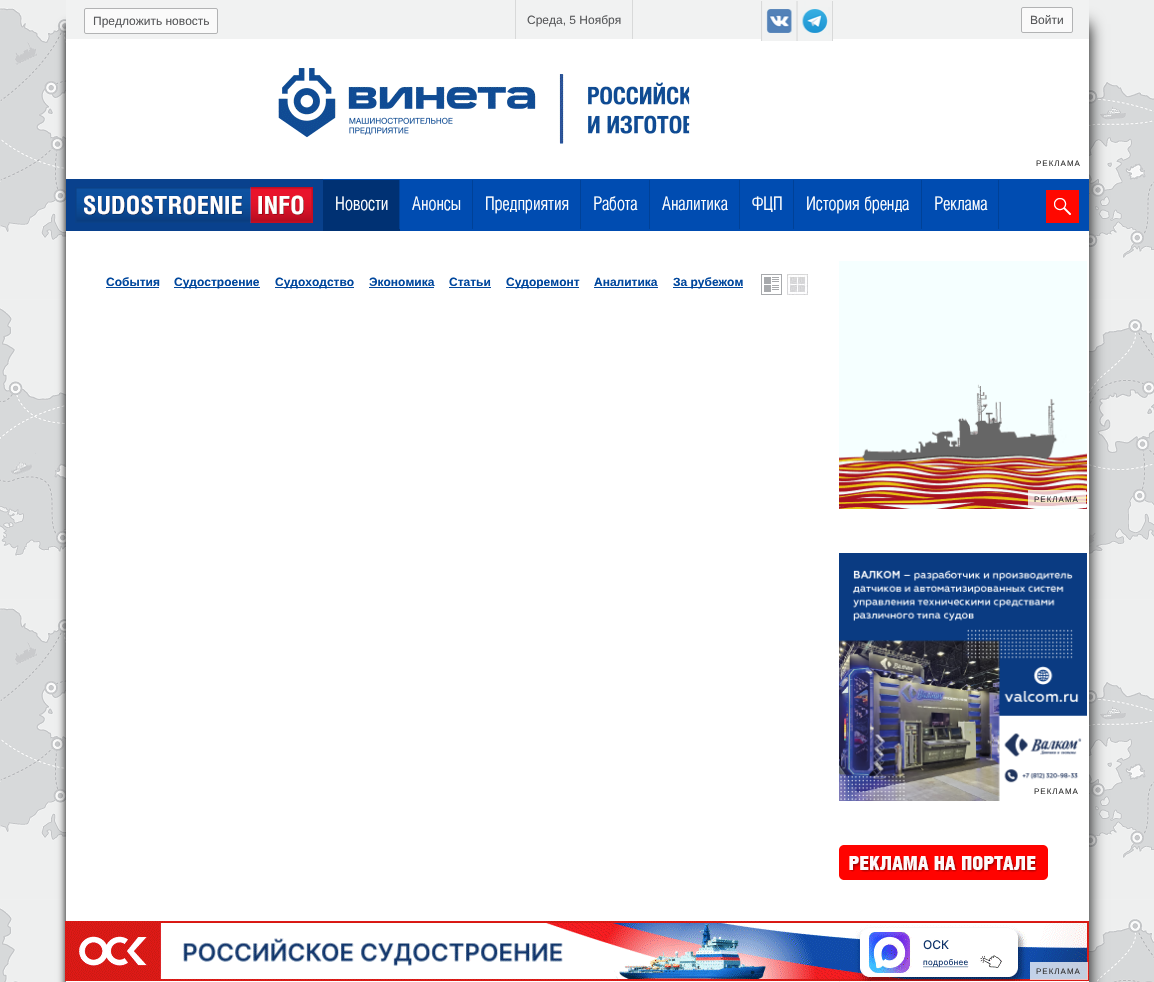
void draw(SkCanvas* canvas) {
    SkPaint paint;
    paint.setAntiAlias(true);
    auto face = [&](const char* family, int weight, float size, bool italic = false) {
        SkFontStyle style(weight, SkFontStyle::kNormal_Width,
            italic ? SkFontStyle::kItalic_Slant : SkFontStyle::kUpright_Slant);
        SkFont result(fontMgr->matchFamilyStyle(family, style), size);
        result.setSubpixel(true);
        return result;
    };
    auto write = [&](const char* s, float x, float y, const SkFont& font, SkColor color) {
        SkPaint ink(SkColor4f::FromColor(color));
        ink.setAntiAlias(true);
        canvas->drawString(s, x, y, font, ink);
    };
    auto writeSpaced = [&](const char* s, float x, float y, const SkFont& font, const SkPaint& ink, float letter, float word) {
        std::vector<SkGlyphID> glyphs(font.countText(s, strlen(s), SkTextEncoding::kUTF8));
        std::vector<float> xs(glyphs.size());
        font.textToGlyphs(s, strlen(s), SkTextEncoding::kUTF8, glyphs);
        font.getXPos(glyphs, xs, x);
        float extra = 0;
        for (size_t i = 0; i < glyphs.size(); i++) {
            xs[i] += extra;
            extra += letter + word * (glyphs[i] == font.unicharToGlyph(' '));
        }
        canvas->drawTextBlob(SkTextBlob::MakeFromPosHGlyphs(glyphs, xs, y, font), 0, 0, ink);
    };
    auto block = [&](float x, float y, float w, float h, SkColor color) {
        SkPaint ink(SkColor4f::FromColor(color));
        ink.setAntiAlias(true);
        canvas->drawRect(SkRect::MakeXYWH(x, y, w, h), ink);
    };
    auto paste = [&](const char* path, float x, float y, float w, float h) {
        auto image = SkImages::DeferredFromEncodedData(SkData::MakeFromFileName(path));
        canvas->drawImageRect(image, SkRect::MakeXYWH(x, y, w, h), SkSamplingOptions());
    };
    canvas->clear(SK_ColorWHITE);
    paste("pic1.png", 0, 0, 1154, 982);
    paint.setColor(SK_ColorBLACK);
    paint.setMaskFilter(SkMaskFilter::MakeBlur(kNormal_SkBlurStyle, 4));
    canvas->drawRect(SkRect::MakeXYWH(66, 24, 999, 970), paint);
    paint.setMaskFilter(nullptr);
    paint.setMaskFilter(SkMaskFilter::MakeBlur(kNormal_SkBlurStyle, 7.5f));
    canvas->drawRect(SkRect::MakeXYWH(90, 24, 999, 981), paint);
    paint.setMaskFilter(nullptr);
    block(66, 39, 1023, 943, SK_ColorWHITE);
    block(66, 0, 1023, 39, SkColorSetRGB(241, 242, 242));
    paint.setColor(SkColorSetRGB(250, 250, 250));
    canvas->drawRoundRect(SkRect::MakeXYWH(84.5f, 8.5f, 133, 25), 1.5f, 1.5f, paint);
    paint.setStyle(SkPaint::kStroke_Style);
    paint.setStrokeWidth(1);
    paint.setColor(SkColorSetRGB(178, 179, 180));
    canvas->drawRoundRect(SkRect::MakeXYWH(84.5f, 8.5f, 133, 25), 1.5f, 1.5f, paint);
    auto kFont1 = face("Liberation Sans", 400, 12);
    write("Предложить новость", 93, 25, kFont1, SkColorSetRGB(88, 89, 91));
    block(632, 0, 1, 39, SkColorSetRGB(216, 217, 217));
    block(515, 0, 1, 39, SkColorSetRGB(216, 217, 217));
    write("Среда, 5 Ноября", 527, 24, kFont1, SkColorSetRGB(88, 89, 91));
    paste("pic2.png", 761, 1, 72, 40);
    paint.setStyle(SkPaint::kFill_Style);
    paint.setColor(SkColorSetRGB(250, 250, 250));
    canvas->drawRoundRect(SkRect::MakeXYWH(1021.5f, 7.5f, 51, 25), 1.5f, 1.5f, paint);
    paint.setStyle(SkPaint::kStroke_Style);
    paint.setColor(SkColorSetRGB(178, 179, 180));
    canvas->drawRoundRect(SkRect::MakeXYWH(1021.5f, 7.5f, 51, 25), 1.5f, 1.5f, paint);
    write("Войти", 1030, 24, kFont1, SkColorSetRGB(88, 89, 91));
    paste("pic3.png", 278, 67, 412, 77);
    auto kFont2 = face("Liberation Sans", 400, 8);
    paint.setStyle(SkPaint::kFill_Style);
    paint.setColor(SkColorSetRGB(51, 51, 51));
    writeSpaced("РЕКЛАМА", 1036, 166, kFont2, paint, 1, 0);
    block(323, 179, 766, 52, SkColorSetRGB(0, 76, 177));
    block(66, 179, 257, 52, SkColorSetRGB(9, 65, 141));
    paste("pic4.png", 75, 187, 238, 36);
    block(323, 180, 77, 51, SkColorSetRGB(0, 49, 115));
    auto kFont3 = face("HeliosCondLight", 300, 18);
    write("Новости", 335, 210, kFont3, SK_ColorWHITE);
    block(399, 180, 1, 49, SkColorSetRGB(0, 65, 151));
    write("Анонсы", 412, 210, kFont3, SK_ColorWHITE);
    block(472, 180, 1, 49, SkColorSetRGB(0, 65, 151));
    write("Предприятия", 485, 210, kFont3, SK_ColorWHITE);
    block(580, 180, 1, 49, SkColorSetRGB(0, 65, 151));
    write("Работа", 593, 210, kFont3, SK_ColorWHITE);
    block(649, 180, 1, 49, SkColorSetRGB(0, 65, 151));
    write("Аналитика", 662, 210, kFont3, SK_ColorWHITE);
    block(739, 180, 1, 49, SkColorSetRGB(0, 65, 151));
    write("ФЦП", 752, 210, kFont3, SK_ColorWHITE);
    block(793, 180, 1, 49, SkColorSetRGB(0, 65, 151));
    write("История бренда", 806, 210, kFont3, SK_ColorWHITE);
    block(921, 180, 1, 49, SkColorSetRGB(0, 65, 151));
    write("Реклама", 934, 210, kFont3, SK_ColorWHITE);
    block(998, 180, 1, 49, SkColorSetRGB(0, 65, 151));
    block(1046, 190, 33, 33, SkColorSetRGB(255, 8, 0));
    paste("pic5.png", 1054, 198, 17, 17);
    auto kFont4 = face("Liberation Sans", 700, 12);
    write("События", 106, 286, kFont4, SkColorSetRGB(0, 71, 157));
    block(106, 287, 53, 1, SkColorSetRGB(0, 71, 157));
    block(174, 287, 86, 1, SkColorSetRGB(0, 71, 157));
    write("Судостроение", 174, 286, kFont4, SkColorSetRGB(0, 71, 157));
    block(275, 287, 79, 1, SkColorSetRGB(0, 71, 157));
    write("Судоходство", 275, 286, kFont4, SkColorSetRGB(0, 71, 157));
    write("Экономика", 369, 286, kFont4, SkColorSetRGB(0, 71, 157));
    block(369, 287, 65, 1, SkColorSetRGB(0, 71, 157));
    write("Статьи", 449, 286, kFont4, SkColorSetRGB(0, 71, 157));
    block(449, 287, 42, 1, SkColorSetRGB(0, 71, 157));
    block(506, 287, 73, 1, SkColorSetRGB(0, 71, 157));
    write("Судоремонт", 506, 286, kFont4, SkColorSetRGB(0, 71, 157));
    write("Аналитика", 594, 286, kFont4, SkColorSetRGB(0, 71, 157));
    block(594, 287, 64, 1, SkColorSetRGB(0, 71, 157));
    block(673, 287, 70, 1, SkColorSetRGB(0, 71, 157));
    write("За рубежом", 673, 286, kFont4, SkColorSetRGB(0, 71, 157));
    paste("pic6.png", 761, 274, 21, 21);
    paste("pic7.png", 787, 274, 21, 21);
    paste("pic8.png", 839, 261, 248, 248);
    block(1028, 490, 58, 18, SkColorSetARGB(191, 255, 255, 255));
    writeSpaced("РЕКЛАМА", 1034, 502, kFont2, paint, 1, 0);
    paste("pic9.png", 839, 553, 248, 248);
    writeSpaced("РЕКЛАМА", 1034, 794, kFont2, paint, 1, 0);
    paste("pic10.png", 839, 845, 209, 35);
    block(1086, 981, 1, 1, SkColorSetRGB(241, 242, 242));
    block(839, 981, 1, 1, SkColorSetRGB(241, 242, 242));
    paste("pic11.png", 65, 921, 1024, 60);
    block(1030, 962, 58, 18, SkColorSetARGB(191, 255, 255, 255));
    writeSpaced("РЕКЛАМА", 1036, 974, kFont2, paint, 1, 0);
}
